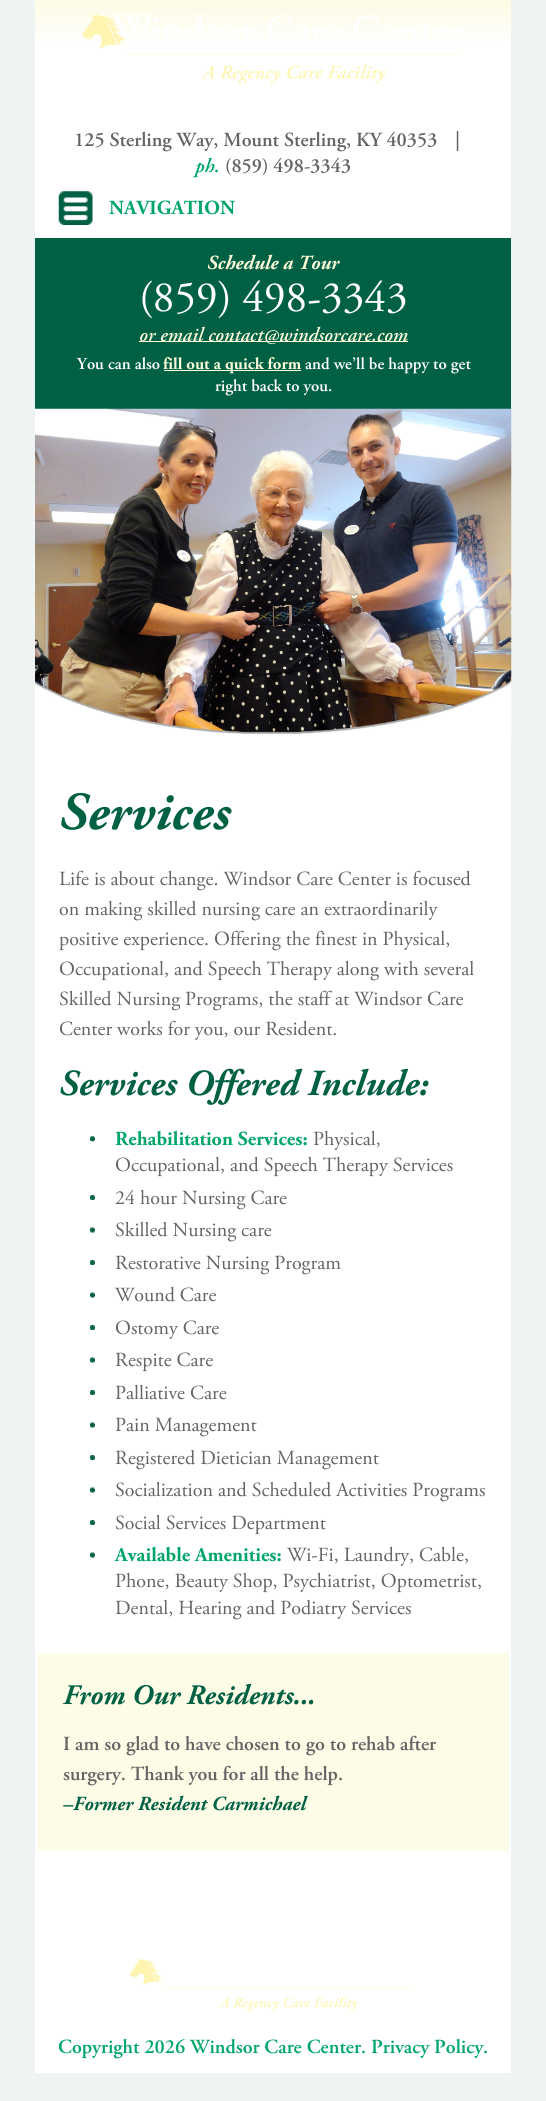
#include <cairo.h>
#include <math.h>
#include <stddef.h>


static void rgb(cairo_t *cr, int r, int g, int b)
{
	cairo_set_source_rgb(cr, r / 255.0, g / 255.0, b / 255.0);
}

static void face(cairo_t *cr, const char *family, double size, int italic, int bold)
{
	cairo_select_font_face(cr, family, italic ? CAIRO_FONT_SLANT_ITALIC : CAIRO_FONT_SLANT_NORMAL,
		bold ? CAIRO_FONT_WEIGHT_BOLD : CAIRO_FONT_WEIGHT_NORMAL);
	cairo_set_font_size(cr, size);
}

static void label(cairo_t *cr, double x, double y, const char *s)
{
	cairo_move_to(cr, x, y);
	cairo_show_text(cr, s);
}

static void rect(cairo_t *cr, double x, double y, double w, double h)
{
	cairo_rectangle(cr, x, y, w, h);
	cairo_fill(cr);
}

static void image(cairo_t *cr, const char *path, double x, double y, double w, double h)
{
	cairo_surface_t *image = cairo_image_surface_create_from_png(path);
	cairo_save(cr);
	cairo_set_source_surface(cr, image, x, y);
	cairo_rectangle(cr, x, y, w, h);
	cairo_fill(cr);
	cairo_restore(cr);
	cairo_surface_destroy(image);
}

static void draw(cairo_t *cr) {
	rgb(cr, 239, 243, 241);
	cairo_paint(cr);
	rgb(cr, 255, 255, 255);
	rect(cr, 35, 0, 476, 238);
	image(cr, "image0.png", 35, 0, 477, 41);
	image(cr, "image1.png", 83, 13, 381, 71);
	face(cr, "Adobe Garamond SemiBold", 20, 0, 0);
	rgb(cr, 100, 100, 100);
	label(cr, 74, 146, "125 Sterling Way, Mount Sterling, KY 40353");
	label(cr, 455, 146, "|");
	face(cr, "Adobe Garamond SemiBold", 20, 1, 0);
	rgb(cr, 0, 166, 105);
	label(cr, 195, 172, "ph.");
	face(cr, "Adobe Garamond SemiBold", 20, 0, 0);
	rgb(cr, 100, 100, 100);
	label(cr, 225, 172, "(859) 498-3343");
	image(cr, "image2.png", 58, 191, 35, 34);
	face(cr, "Adobe Garamond", 20, 0, 1);
	rgb(cr, 0, 166, 105);
	label(cr, 109, 214, "NAVIGATION");
	rgb(cr, 255, 255, 255);
	rect(cr, 35, 740, 476, 1333);
	rgb(cr, 0, 96, 67);
	rect(cr, 35, 238, 476, 171);
	face(cr, "Adobe Garamond", 20, 1, 1);
	rgb(cr, 252, 250, 218);
	label(cr, 207, 269, "Schedule a Tour");
	face(cr, "Adobe Garamond", 43.25, 0, 0);
	rgb(cr, 255, 255, 255);
	label(cr, 139, 311, "(859) 498-3343");
	rgb(cr, 252, 250, 218);
	rect(cr, 139, 341, 269, 1);
	face(cr, "Adobe Garamond SemiBold", 20, 1, 0);
	label(cr, 139, 341, "or email contact@windsorcare.com");
	face(cr, "Adobe Garamond SemiBold", 16.75, 0, 0);
	rgb(cr, 255, 255, 255);
	label(cr, 77, 369, "You can also");
	rgb(cr, 252, 250, 218);
	rect(cr, 164, 370, 137, 1);
	face(cr, "Adobe Garamond", 16.75, 0, 1);
	label(cr, 163, 369, "fill out a quick form");
	face(cr, "Adobe Garamond SemiBold", 16.75, 0, 0);
	rgb(cr, 255, 255, 255);
	label(cr, 305, 369, "and we’ll be happy to get");
	label(cr, 215, 391, "right back to you.");
	image(cr, "image3.png", 35, 408, 477, 332);
	face(cr, "Adobe Garamond", 53.5, 1, 1);
	rgb(cr, 0, 96, 67);
	label(cr, 59, 829, "Services");
	face(cr, "Adobe Garamond", 20, 0, 0);
	rgb(cr, 100, 100, 100);
	label(cr, 59, 885, "Life is about change. Windsor Care Center is focused");
	label(cr, 59, 915, "on making skilled nursing care an extraordinarily");
	label(cr, 59, 945, "positive experience. Offering the finest in Physical,");
	label(cr, 59, 975, "Occupational, and Speech Therapy along with several");
	label(cr, 59, 1005, "Skilled Nursing Programs, the staff at Windsor Care");
	label(cr, 59, 1035, "Center works for you, our Resident.");
	face(cr, "Adobe Garamond", 36.75, 1, 1);
	rgb(cr, 0, 96, 67);
	label(cr, 59, 1095, "Services Offered Include:");
	image(cr, "image4.png", 90, 1136, 5, 6);
	face(cr, "Adobe Garamond", 20, 0, 1);
	rgb(cr, 0, 166, 105);
	label(cr, 115, 1145, "Rehabilitation Services:");
	face(cr, "Adobe Garamond", 20, 0, 0);
	rgb(cr, 100, 100, 100);
	label(cr, 313, 1145, "Physical,");
	label(cr, 115, 1171, "Occupational, and Speech Therapy Services");
	image(cr, "image5.png", 90, 1195, 5, 5);
	label(cr, 115, 1204, "24 hour Nursing Care");
	image(cr, "image6.png", 90, 1227, 5, 6);
	label(cr, 115, 1236, "Skilled Nursing care");
	image(cr, "image5.png", 90, 1260, 5, 5);
	label(cr, 115, 1269, "Restorative Nursing Program");
	image(cr, "image6.png", 90, 1292, 5, 6);
	label(cr, 115, 1301, "Wound Care");
	image(cr, "image5.png", 90, 1325, 5, 5);
	label(cr, 115, 1334, "Ostomy Care");
	image(cr, "image6.png", 90, 1357, 5, 6);
	label(cr, 115, 1366, "Respite Care");
	image(cr, "image5.png", 90, 1390, 5, 5);
	label(cr, 115, 1399, "Palliative Care");
	image(cr, "image6.png", 90, 1422, 5, 6);
	label(cr, 115, 1431, "Pain Management");
	image(cr, "image5.png", 90, 1455, 5, 5);
	label(cr, 115, 1464, "Registered Dietician Management");
	image(cr, "image6.png", 90, 1487, 5, 6);
	label(cr, 115, 1496, "Socialization and Scheduled Activities Programs");
	image(cr, "image5.png", 90, 1520, 5, 5);
	label(cr, 115, 1529, "Social Services Department");
	image(cr, "image6.png", 90, 1552, 5, 6);
	face(cr, "Adobe Garamond", 20, 0, 1);
	rgb(cr, 0, 166, 105);
	label(cr, 115, 1561, "Available Amenities:");
	face(cr, "Adobe Garamond", 20, 0, 0);
	rgb(cr, 100, 100, 100);
	label(cr, 287, 1561, "Wi-Fi, Laundry, Cable,");
	label(cr, 115, 1587, "Phone, Beauty Shop, Psychiatrist, Optometrist,");
	label(cr, 115, 1614, "Dental, Hearing and Podiatry Services");
	rgb(cr, 253, 252, 231);
	rect(cr, 38, 1653, 471, 198);
	face(cr, "Adobe Garamond", 28.25, 1, 1);
	rgb(cr, 0, 96, 67);
	label(cr, 63, 1704, "From Our Residents...");
	face(cr, "Adobe Garamond SemiBold", 20, 0, 0);
	rgb(cr, 100, 100, 100);
	label(cr, 63, 1750, "I am so glad to have chosen to go to rehab after");
	label(cr, 63, 1780, "surgery. Thank you for all the help.");
	face(cr, "Adobe Garamond", 20, 1, 1);
	rgb(cr, 0, 96, 67);
	label(cr, 63, 1810, "–Former Resident Carmichael");
	image(cr, "image7.png", 130, 1958, 285, 53);
	face(cr, "Adobe Garamond SemiBold", 20, 0, 0);
	rgb(cr, 0, 166, 105);
	label(cr, 58, 2053, "Copyright 2026 Windsor Care Center. Privacy Policy.");
}

int main(void) {
	cairo_surface_t *surface = cairo_image_surface_create(CAIRO_FORMAT_RGB24, 546, 2101);
	cairo_t *cr = cairo_create(surface);
	cairo_font_options_t *options = cairo_font_options_create();
	cairo_font_options_set_hint_metrics(options, CAIRO_HINT_METRICS_OFF);
	cairo_font_options_set_hint_style(options, CAIRO_HINT_STYLE_NONE);
	cairo_set_font_options(cr, options);
	cairo_set_miter_limit(cr, 4);
	draw(cr);
	cairo_surface_write_to_png(surface, "render.png");
	cairo_font_options_destroy(options);
	cairo_destroy(cr);
	cairo_surface_destroy(surface);
	return 0;
}
